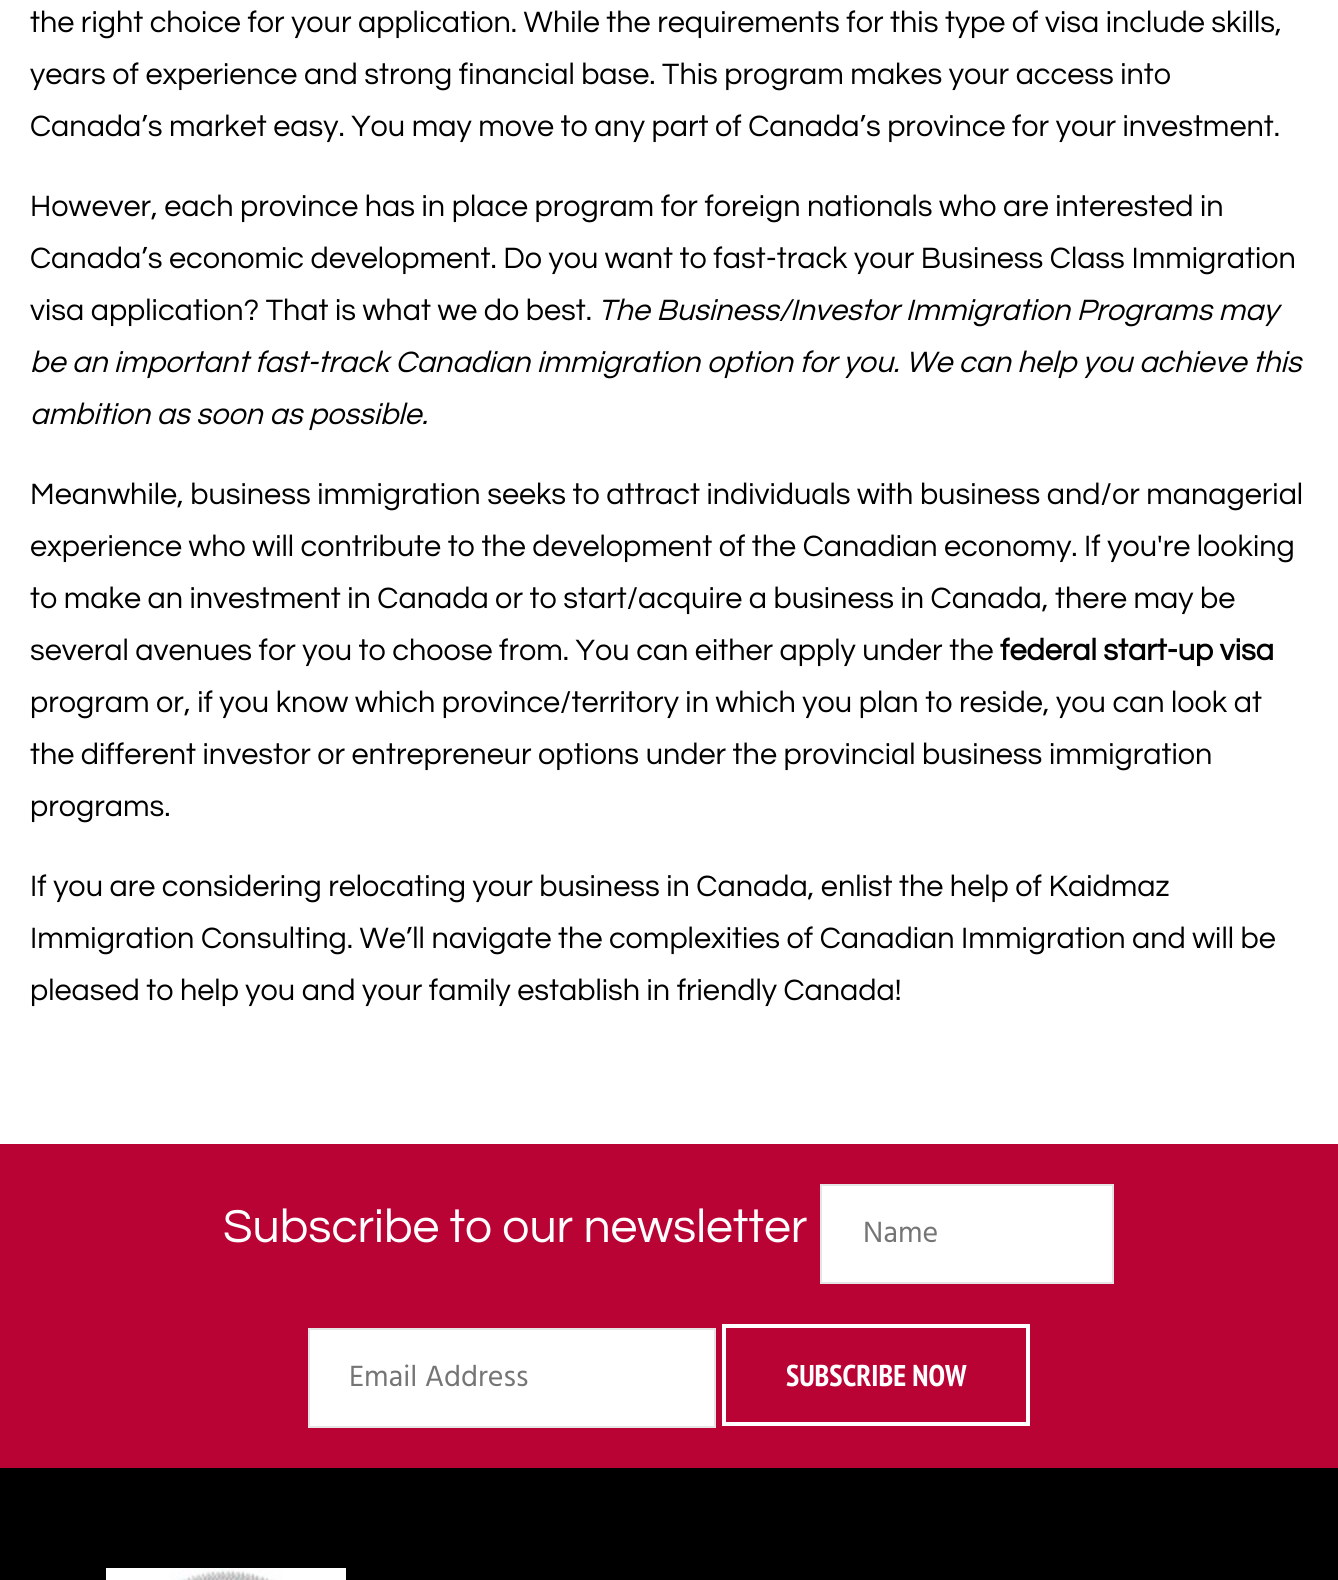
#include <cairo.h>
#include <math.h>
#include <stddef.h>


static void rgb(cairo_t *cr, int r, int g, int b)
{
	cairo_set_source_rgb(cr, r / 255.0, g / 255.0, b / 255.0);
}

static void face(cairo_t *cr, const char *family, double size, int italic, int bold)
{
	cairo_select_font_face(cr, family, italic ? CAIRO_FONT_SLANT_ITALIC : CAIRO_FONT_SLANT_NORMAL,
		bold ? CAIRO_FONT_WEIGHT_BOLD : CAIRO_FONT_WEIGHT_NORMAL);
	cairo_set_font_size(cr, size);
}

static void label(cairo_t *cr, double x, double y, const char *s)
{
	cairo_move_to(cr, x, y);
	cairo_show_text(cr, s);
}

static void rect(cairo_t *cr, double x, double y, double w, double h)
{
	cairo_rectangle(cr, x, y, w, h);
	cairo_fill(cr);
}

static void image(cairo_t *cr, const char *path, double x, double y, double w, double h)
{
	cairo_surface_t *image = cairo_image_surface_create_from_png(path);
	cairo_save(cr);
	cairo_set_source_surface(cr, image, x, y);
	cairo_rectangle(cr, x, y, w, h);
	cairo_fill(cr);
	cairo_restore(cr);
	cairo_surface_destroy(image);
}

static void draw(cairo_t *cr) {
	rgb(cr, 255, 255, 255);
	cairo_paint(cr);
	face(cr, "Questrial", 30.6, 0, 0);
	rgb(cr, 0, 0, 0);
	label(cr, 30, 32, "the right choice for your application. While the requirements for this type of visa include skills,");
	label(cr, 30, 84, "years of experience and strong financial base. This program makes your access into");
	label(cr, 30, 136, "Canada’s market easy. You may move to any part of Canada’s province for your investment.");
	label(cr, 30, 216, "However, each province has in place program for foreign nationals who are interested in");
	label(cr, 30, 268, "Canada’s economic development. Do you want to fast-track your Business Class Immigration");
	label(cr, 30, 320, "visa application? That is what we do best.");
	face(cr, "Questrial", 30.6, 1, 0);
	label(cr, 598, 320, "The Business/Investor Immigration Programs may");
	label(cr, 30, 372, "be an important fast-track Canadian immigration option for you. We can help you achieve this");
	label(cr, 30, 424, "ambition as soon as possible.");
	face(cr, "Questrial", 30.6, 0, 0);
	label(cr, 30, 504, "Meanwhile, business immigration seeks to attract individuals with business and/or managerial");
	label(cr, 30, 556, "experience who will contribute to the development of the Canadian economy. If you're looking");
	label(cr, 30, 608, "to make an investment in Canada or to start/acquire a business in Canada, there may be");
	label(cr, 30, 660, "several avenues for you to choose from. You can either apply under the");
	face(cr, "Questrial", 30.6, 0, 1);
	label(cr, 1000, 660, "federal start-up visa");
	face(cr, "Questrial", 30.6, 0, 0);
	label(cr, 30, 712, "program or, if you know which province/territory in which you plan to reside, you can look at");
	label(cr, 30, 764, "the different investor or entrepreneur options under the provincial business immigration");
	label(cr, 30, 816, "programs.");
	label(cr, 30, 896, "If you are considering relocating your business in Canada, enlist the help of Kaidmaz");
	label(cr, 30, 948, "Immigration Consulting. We’ll navigate the complexities of Canadian Immigration and will be");
	label(cr, 30, 1000, "pleased to help you and your family establish in friendly Canada!");
	rgb(cr, 186, 3, 53);
	rect(cr, 0, 1144, 1338, 324);
	face(cr, "Questrial", 48, 0, 0);
	rgb(cr, 255, 255, 255);
	label(cr, 223, 1242, "Subscribe to our newsletter");
	cairo_rectangle(cr, 821, 1185, 292, 98);
	cairo_fill_preserve(cr);
	rgb(cr, 229, 229, 229);
	cairo_stroke(cr);
	face(cr, "Hind", 30, 0, 0);
	rgb(cr, 117, 117, 117);
	label(cr, 863, 1242, "Name");
	rgb(cr, 255, 255, 255);
	cairo_rectangle(cr, 309, 1329, 406, 98);
	cairo_fill_preserve(cr);
	rgb(cr, 229, 229, 229);
	cairo_stroke(cr);
	rgb(cr, 117, 117, 117);
	label(cr, 349, 1386, "Email Address");
	cairo_rectangle(cr, 724, 1326, 304, 98);
	rgb(cr, 255, 255, 255);
	cairo_set_line_width(cr, 4);
	cairo_stroke(cr);
	face(cr, "PT Sans Narrow", 30, 0, 1);
	label(cr, 786, 1386, "SUBSCRIBE NOW");
	rgb(cr, 0, 0, 0);
	rect(cr, 0, 1468, 1338, 112);
	image(cr, "image0.png", 106, 1568, 240, 12);
}

int main(void) {
	cairo_surface_t *surface = cairo_image_surface_create(CAIRO_FORMAT_RGB24, 1338, 1580);
	cairo_t *cr = cairo_create(surface);
	cairo_font_options_t *options = cairo_font_options_create();
	cairo_font_options_set_hint_metrics(options, CAIRO_HINT_METRICS_OFF);
	cairo_font_options_set_hint_style(options, CAIRO_HINT_STYLE_NONE);
	cairo_set_font_options(cr, options);
	cairo_set_miter_limit(cr, 4);
	draw(cr);
	cairo_surface_write_to_png(surface, "render.png");
	cairo_font_options_destroy(options);
	cairo_destroy(cr);
	cairo_surface_destroy(surface);
	return 0;
}
